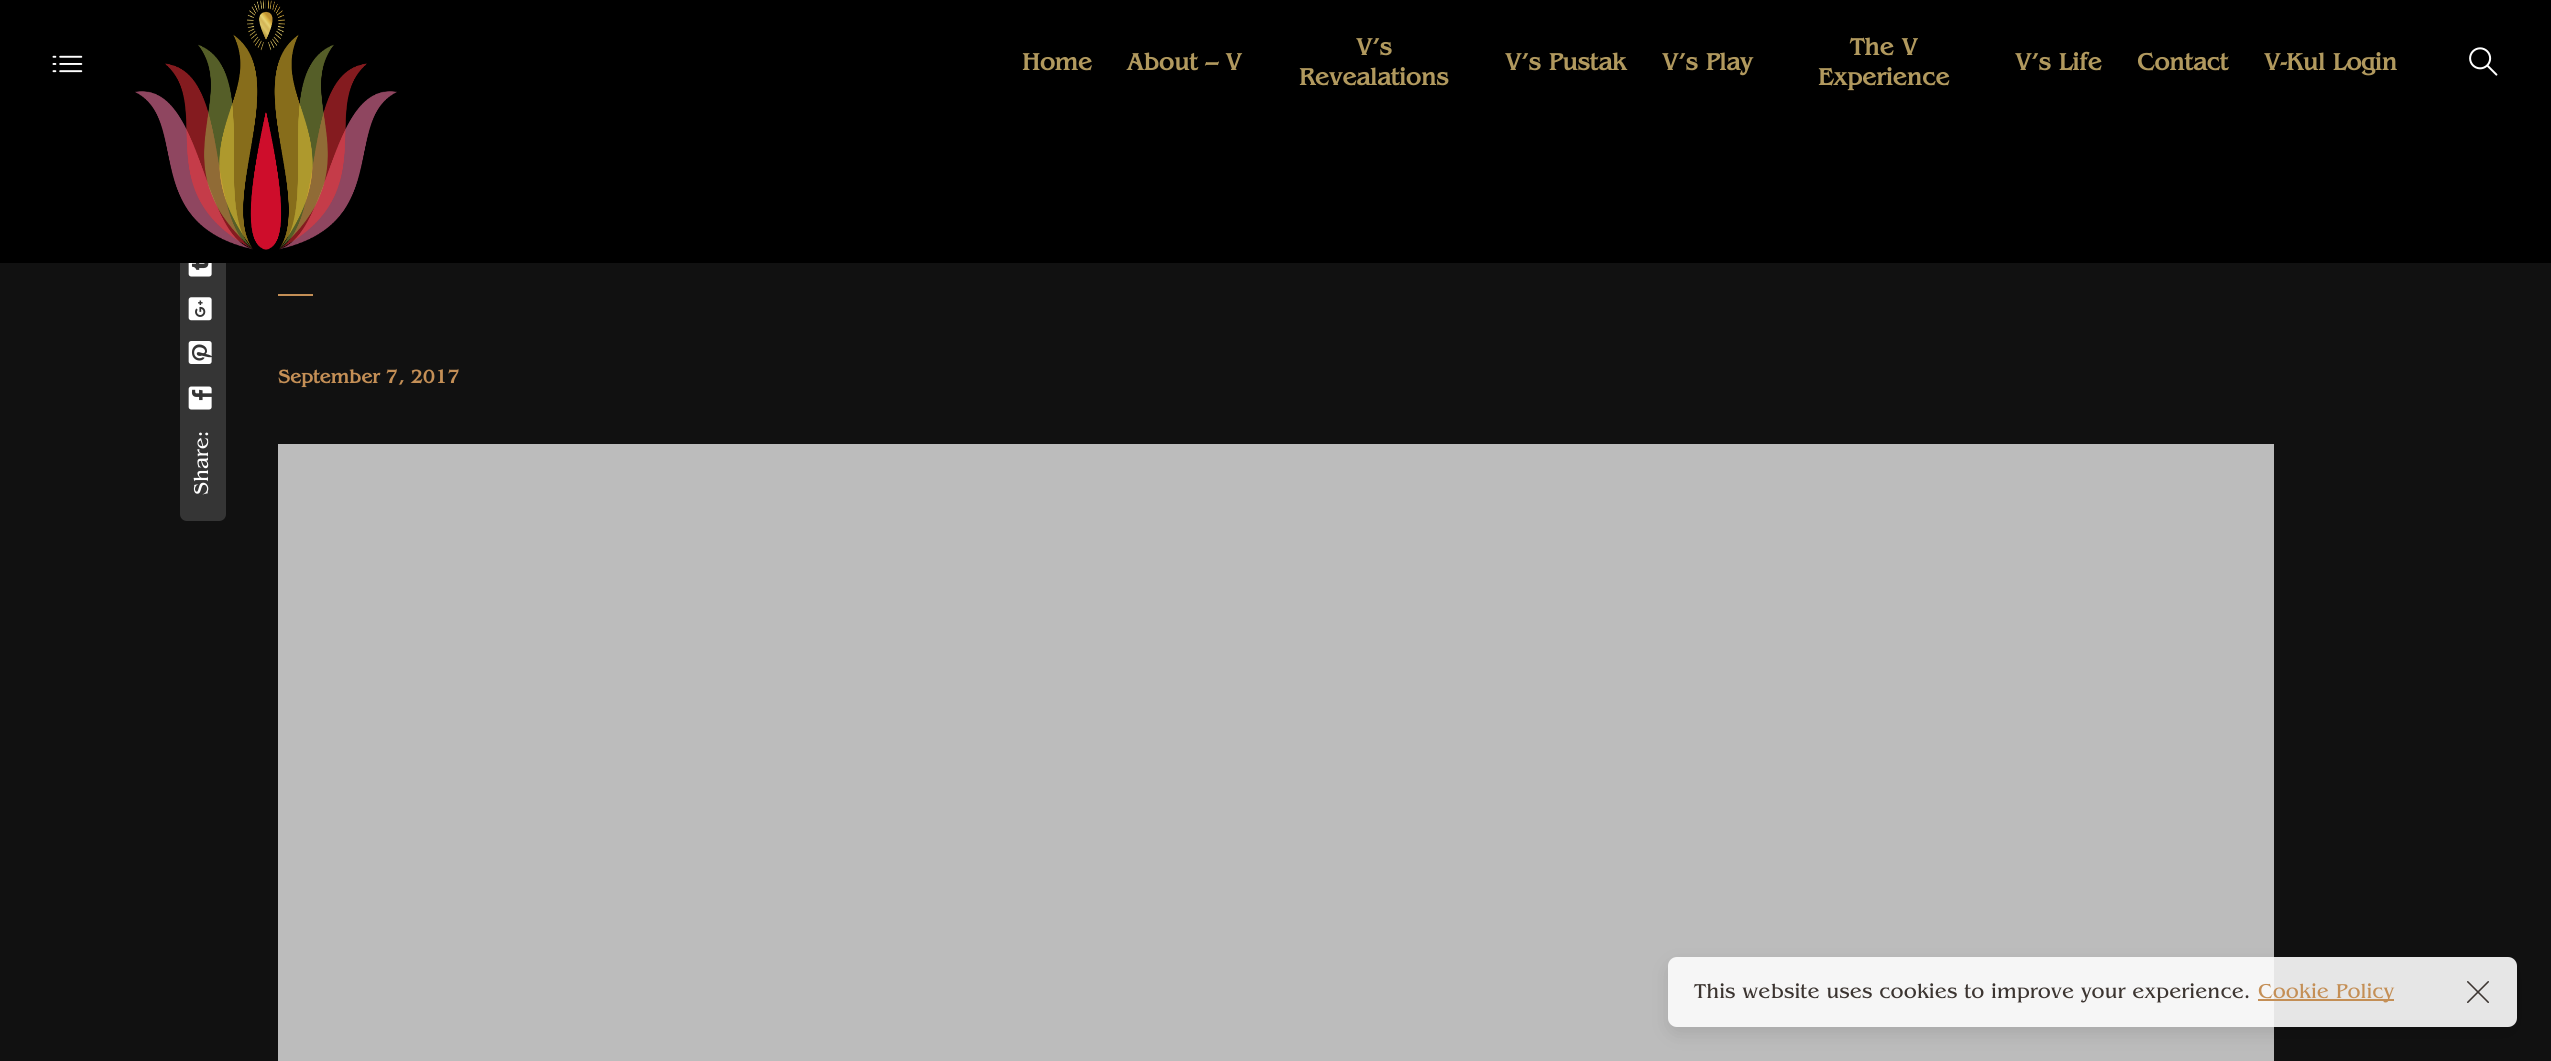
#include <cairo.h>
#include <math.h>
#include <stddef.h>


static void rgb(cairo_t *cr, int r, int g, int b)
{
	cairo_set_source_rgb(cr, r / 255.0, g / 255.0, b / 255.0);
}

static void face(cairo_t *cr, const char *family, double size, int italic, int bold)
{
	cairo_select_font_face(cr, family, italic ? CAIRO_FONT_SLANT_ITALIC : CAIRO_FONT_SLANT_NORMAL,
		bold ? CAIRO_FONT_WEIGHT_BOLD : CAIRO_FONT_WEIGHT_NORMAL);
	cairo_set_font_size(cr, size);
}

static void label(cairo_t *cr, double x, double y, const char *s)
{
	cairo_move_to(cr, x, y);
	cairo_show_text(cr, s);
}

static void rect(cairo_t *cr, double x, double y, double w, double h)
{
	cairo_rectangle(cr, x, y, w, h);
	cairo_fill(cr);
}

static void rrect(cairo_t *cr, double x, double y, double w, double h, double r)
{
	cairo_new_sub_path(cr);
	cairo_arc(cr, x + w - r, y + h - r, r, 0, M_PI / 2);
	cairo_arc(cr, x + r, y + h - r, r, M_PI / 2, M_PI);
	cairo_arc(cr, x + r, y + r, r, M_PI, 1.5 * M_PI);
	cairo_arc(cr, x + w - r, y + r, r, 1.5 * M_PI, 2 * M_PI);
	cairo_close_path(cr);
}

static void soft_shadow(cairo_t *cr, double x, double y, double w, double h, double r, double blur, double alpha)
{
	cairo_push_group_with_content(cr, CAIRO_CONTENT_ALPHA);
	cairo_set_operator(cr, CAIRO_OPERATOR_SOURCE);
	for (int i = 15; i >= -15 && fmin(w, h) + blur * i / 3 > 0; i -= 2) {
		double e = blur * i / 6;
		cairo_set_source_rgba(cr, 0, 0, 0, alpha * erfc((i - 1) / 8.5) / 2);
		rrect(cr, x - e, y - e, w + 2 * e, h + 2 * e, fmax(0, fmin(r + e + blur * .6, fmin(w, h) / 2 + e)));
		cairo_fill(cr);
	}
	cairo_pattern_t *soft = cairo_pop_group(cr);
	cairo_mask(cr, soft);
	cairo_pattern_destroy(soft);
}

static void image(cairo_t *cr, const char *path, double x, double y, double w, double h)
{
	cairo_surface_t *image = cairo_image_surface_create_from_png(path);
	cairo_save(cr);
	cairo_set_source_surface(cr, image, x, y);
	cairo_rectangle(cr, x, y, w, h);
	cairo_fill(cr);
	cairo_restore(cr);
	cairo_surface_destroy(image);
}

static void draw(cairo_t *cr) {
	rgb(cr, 17, 17, 17);
	cairo_paint(cr);
	rgb(cr, 53, 53, 53);
	cairo_new_path(cr);
	cairo_move_to(cr, 180, 514);
	cairo_line_to(cr, 180, 191);
	cairo_curve_to(cr, 180, 187, 183, 184, 187, 184);
	cairo_line_to(cr, 219, 184);
	cairo_curve_to(cr, 223, 184, 226, 187, 226, 191);
	cairo_line_to(cr, 226, 514);
	cairo_curve_to(cr, 226, 518, 223, 521, 219, 521);
	cairo_line_to(cr, 187, 521);
	cairo_curve_to(cr, 183, 521, 180, 518, 180, 514);
	cairo_close_path(cr);
	cairo_fill(cr);
	rgb(cr, 0, 0, 0);
	rect(cr, 0, 0, 2551, 263);
	image(cr, "image0.png", 52, 55, 31, 18);
	image(cr, "image1.png", 135, 0, 262, 250);
	face(cr, "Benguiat", 24.5, 0, 1);
	rgb(cr, 177, 153, 94);
	label(cr, 1022, 70, "Home");
	label(cr, 1127, 70, "About – V");
	label(cr, 1356, 55, "V’s");
	label(cr, 1299, 85, "Revealations");
	label(cr, 1505, 70, "V’s Pustak");
	label(cr, 1662, 70, "V’s Play");
	label(cr, 1850, 55, "The V");
	label(cr, 1818, 85, "Experience");
	label(cr, 2015, 70, "V’s Life");
	label(cr, 2137, 70, "Contact");
	label(cr, 2264, 70, "V-Kul Login");
	image(cr, "image2.png", 2469, 47, 29, 29);
	rgb(cr, 196, 143, 86);
	rect(cr, 278, 294, 35, 2);
	face(cr, "Benguiat", 19.25, 0, 1);
	label(cr, 278, 383, "September 7, 2017");
	image(cr, "image3.png", 188, 263, 24, 14);
	image(cr, "image4.png", 188, 297, 24, 24);
	image(cr, "image5.png", 188, 341, 24, 23);
	image(cr, "image6.png", 188, 386, 24, 24);
	face(cr, "Benguiat", 21, 0, 0);
	rgb(cr, 255, 255, 255);
	cairo_save(cr);
	cairo_translate(cr, 208, 495);
	cairo_rotate(cr, -90 * M_PI / 180);
	label(cr, 0, 0, "Share:");
	cairo_restore(cr);
	rgb(cr, 188, 188, 188);
	rect(cr, 278, 444, 1996, 617);
	cairo_save(cr);
	cairo_set_fill_rule(cr, CAIRO_FILL_RULE_EVEN_ODD);
	cairo_new_path(cr);
	cairo_move_to(cr, 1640, 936);
	cairo_line_to(cr, 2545, 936);
	cairo_line_to(cr, 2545, 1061);
	cairo_line_to(cr, 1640, 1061);
	cairo_close_path(cr);
	cairo_move_to(cr, 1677, 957);
	cairo_line_to(cr, 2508, 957);
	cairo_curve_to(cr, 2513, 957, 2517, 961, 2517, 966);
	cairo_line_to(cr, 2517, 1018);
	cairo_curve_to(cr, 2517, 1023, 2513, 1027, 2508, 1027);
	cairo_line_to(cr, 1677, 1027);
	cairo_curve_to(cr, 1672, 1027, 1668, 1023, 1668, 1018);
	cairo_line_to(cr, 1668, 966);
	cairo_curve_to(cr, 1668, 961, 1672, 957, 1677, 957);
	cairo_close_path(cr);
	cairo_clip(cr);
	rgb(cr, 0, 0, 0);
	soft_shadow(cr, 1668, 964, 849, 70, 9, 9, 0.1);
	cairo_restore(cr);
	cairo_set_source_rgba(cr, 0.992, 0.992, 0.992, 0.9);
	rrect(cr, 1668, 957, 849, 70, 9);
	cairo_fill(cr);
	rgb(cr, 60, 53, 49);
	label(cr, 1694, 998, "This website uses cookies to improve your experience.");
	rgb(cr, 196, 143, 86);
	rect(cr, 2258, 999, 136, 2);
	label(cr, 2258, 998, "Cookie Policy");
	image(cr, "image7.png", 2467, 981, 22, 22);
}

int main(void) {
	cairo_surface_t *surface = cairo_image_surface_create(CAIRO_FORMAT_RGB24, 2551, 1061);
	cairo_t *cr = cairo_create(surface);
	cairo_font_options_t *options = cairo_font_options_create();
	cairo_font_options_set_hint_metrics(options, CAIRO_HINT_METRICS_OFF);
	cairo_font_options_set_hint_style(options, CAIRO_HINT_STYLE_NONE);
	cairo_set_font_options(cr, options);
	cairo_set_miter_limit(cr, 4);
	draw(cr);
	cairo_surface_write_to_png(surface, "render.png");
	cairo_font_options_destroy(options);
	cairo_destroy(cr);
	cairo_surface_destroy(surface);
	return 0;
}
